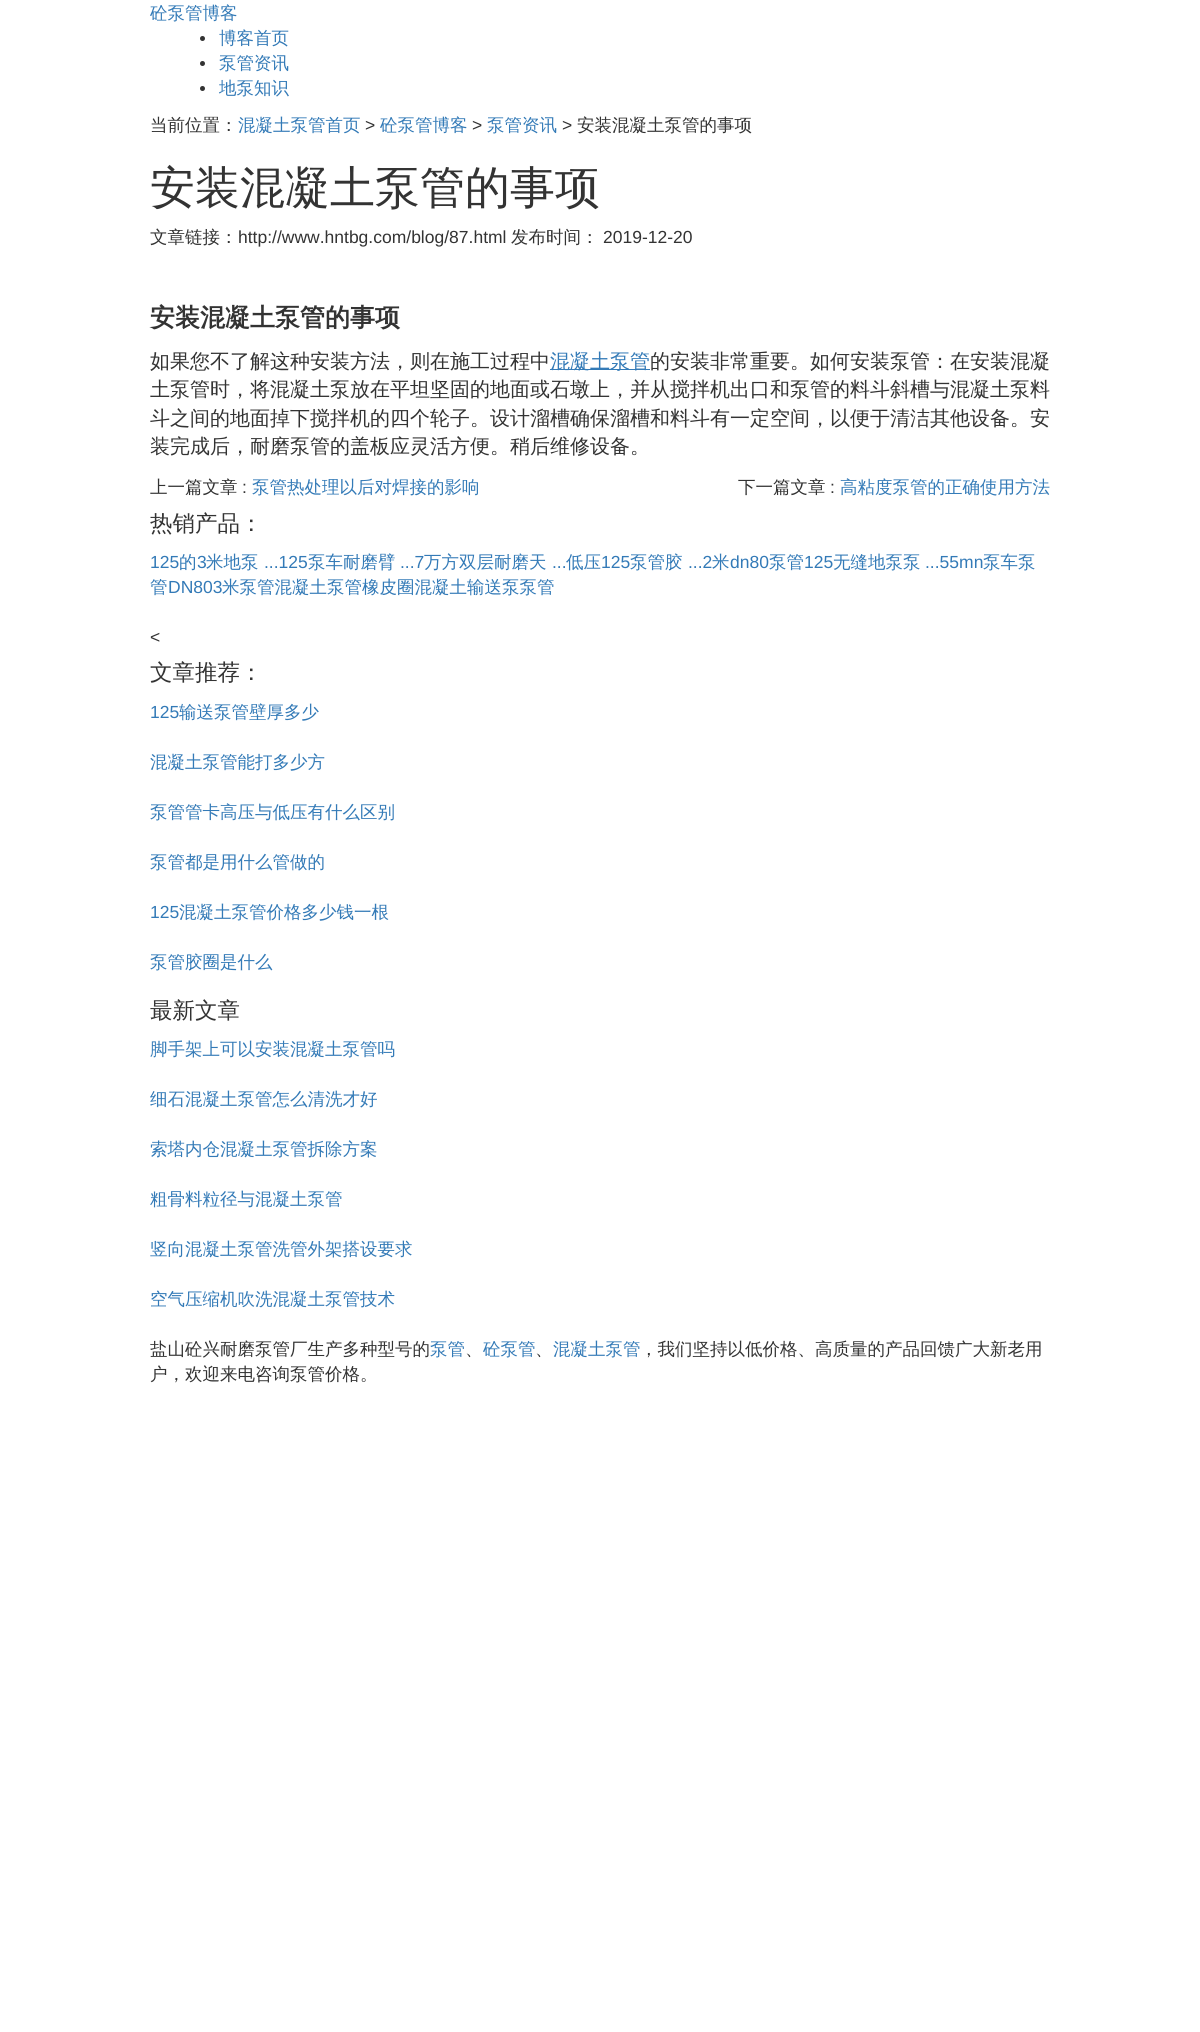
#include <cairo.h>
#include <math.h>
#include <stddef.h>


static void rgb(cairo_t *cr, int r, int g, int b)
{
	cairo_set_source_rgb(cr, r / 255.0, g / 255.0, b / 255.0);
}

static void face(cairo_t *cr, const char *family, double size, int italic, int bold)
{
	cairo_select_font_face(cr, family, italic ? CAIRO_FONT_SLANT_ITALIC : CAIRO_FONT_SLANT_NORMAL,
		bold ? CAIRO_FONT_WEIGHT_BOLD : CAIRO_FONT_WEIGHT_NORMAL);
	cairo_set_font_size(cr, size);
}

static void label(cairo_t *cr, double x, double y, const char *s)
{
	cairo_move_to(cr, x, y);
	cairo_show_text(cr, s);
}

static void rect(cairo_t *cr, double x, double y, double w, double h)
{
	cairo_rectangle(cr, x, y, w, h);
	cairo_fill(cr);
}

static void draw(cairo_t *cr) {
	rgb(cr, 255, 255, 255);
	cairo_paint(cr);
	face(cr, "WenQuanYi Zen Hei Medium", 17.5, 0, 0);
	rgb(cr, 51, 122, 183);
	label(cr, 150, 19, "砼泵管博客");
	rgb(cr, 51, 51, 51);
	cairo_new_path(cr);
	cairo_arc(cr, 202.5, 38.5, 2.5, 0, 2 * M_PI);
	cairo_fill(cr);
	rgb(cr, 51, 122, 183);
	label(cr, 219, 44, "博客首页");
	rgb(cr, 51, 51, 51);
	cairo_new_path(cr);
	cairo_arc(cr, 202.5, 63.5, 2.5, 0, 2 * M_PI);
	cairo_fill(cr);
	rgb(cr, 51, 122, 183);
	label(cr, 219, 69, "泵管资讯");
	rgb(cr, 51, 51, 51);
	cairo_new_path(cr);
	cairo_arc(cr, 202.5, 88.5, 2.5, 0, 2 * M_PI);
	cairo_fill(cr);
	rgb(cr, 51, 122, 183);
	label(cr, 219, 94, "地泵知识");
	rgb(cr, 51, 51, 51);
	label(cr, 150, 131, "当前位置：");
	rgb(cr, 51, 122, 183);
	label(cr, 238, 131, "混凝土泵管首页");
	face(cr, "Liberation Sans", 17.5, 0, 0);
	rgb(cr, 51, 51, 51);
	label(cr, 365, 131, ">");
	face(cr, "WenQuanYi Zen Hei Medium", 17.5, 0, 0);
	rgb(cr, 51, 122, 183);
	label(cr, 380, 131, "砼泵管博客");
	face(cr, "Liberation Sans", 17.5, 0, 0);
	rgb(cr, 51, 51, 51);
	label(cr, 472, 131, ">");
	face(cr, "WenQuanYi Zen Hei Medium", 17.5, 0, 0);
	rgb(cr, 51, 122, 183);
	label(cr, 487, 131, "泵管资讯");
	face(cr, "Liberation Sans", 17.5, 0, 0);
	rgb(cr, 51, 51, 51);
	label(cr, 562, 131, ">");
	face(cr, "WenQuanYi Zen Hei Medium", 17.5, 0, 0);
	label(cr, 577, 131, "安装混凝土泵管的事项");
	face(cr, "WenQuanYi Zen Hei Medium", 45, 0, 0);
	label(cr, 150, 203, "安装混凝土泵管的事项");
	face(cr, "WenQuanYi Zen Hei Medium", 17.5, 0, 0);
	label(cr, 150, 243, "文章链接：");
	face(cr, "Liberation Sans", 17.5, 0, 0);
	label(cr, 238, 243, "http://www.hntbg.com/blog/87.html");
	face(cr, "WenQuanYi Zen Hei Medium", 17.5, 0, 0);
	label(cr, 511, 243, "发布时间：");
	face(cr, "Liberation Sans", 17.5, 0, 0);
	label(cr, 603, 243, "2019-12-20");
	face(cr, "WenQuanYi Zen Hei", 25, 0, 1);
	label(cr, 150, 326, "安装混凝土泵管的事项");
	face(cr, "WenQuanYi Zen Hei Medium", 20, 0, 0);
	label(cr, 150, 368, "如果您不了解这种安装方法，则在施工过程中");
	rgb(cr, 51, 122, 183);
	rect(cr, 550, 369, 100, 1);
	label(cr, 550, 368, "混凝土泵管");
	rgb(cr, 51, 51, 51);
	label(cr, 650, 368, "的安装非常重要。如何安装泵管：在安装混凝");
	label(cr, 150, 396, "土泵管时，将混凝土泵放在平坦坚固的地面或石墩上，并从搅拌机出口和泵管的料斗斜槽与混凝土泵料");
	label(cr, 150, 425, "斗之间的地面掉下搅拌机的四个轮子。设计溜槽确保溜槽和料斗有一定空间，以便于清洁其他设备。安");
	label(cr, 150, 453, "装完成后，耐磨泵管的盖板应灵活方便。稍后维修设备。");
	face(cr, "WenQuanYi Zen Hei Medium", 17.5, 0, 0);
	label(cr, 150, 493, "上一篇文章");
	face(cr, "Liberation Sans", 17.5, 0, 0);
	label(cr, 242, 493, ":");
	face(cr, "WenQuanYi Zen Hei Medium", 17.5, 0, 0);
	rgb(cr, 51, 122, 183);
	label(cr, 252, 493, "泵管热处理以后对焊接的影响");
	rgb(cr, 51, 51, 51);
	label(cr, 738, 493, "下一篇文章");
	face(cr, "Liberation Sans", 17.5, 0, 0);
	label(cr, 830, 493, ":");
	face(cr, "WenQuanYi Zen Hei Medium", 17.5, 0, 0);
	rgb(cr, 51, 122, 183);
	label(cr, 840, 493, "高粘度泵管的正确使用方法");
	face(cr, "WenQuanYi Zen Hei Medium", 22.5, 0, 0);
	rgb(cr, 51, 51, 51);
	label(cr, 150, 531, "热销产品：");
	face(cr, "Liberation Sans", 17.5, 0, 0);
	rgb(cr, 51, 122, 183);
	label(cr, 150, 568, "125");
	face(cr, "WenQuanYi Zen Hei Medium", 17.5, 0, 0);
	label(cr, 179, 568, "的");
	face(cr, "Liberation Sans", 17.5, 0, 0);
	label(cr, 197, 568, "3");
	face(cr, "WenQuanYi Zen Hei Medium", 17.5, 0, 0);
	label(cr, 206, 568, "米地泵");
	face(cr, "Liberation Sans", 17.5, 0, 0);
	label(cr, 264, 568, "...125");
	face(cr, "WenQuanYi Zen Hei Medium", 17.5, 0, 0);
	label(cr, 308, 568, "泵车耐磨臂");
	face(cr, "Liberation Sans", 17.5, 0, 0);
	label(cr, 400, 568, "...7");
	face(cr, "WenQuanYi Zen Hei Medium", 17.5, 0, 0);
	label(cr, 424, 568, "万方双层耐磨天");
	face(cr, "Liberation Sans", 17.5, 0, 0);
	label(cr, 552, 568, "...");
	face(cr, "WenQuanYi Zen Hei Medium", 17.5, 0, 0);
	label(cr, 566, 568, "低压");
	face(cr, "Liberation Sans", 17.5, 0, 0);
	label(cr, 601, 568, "125");
	face(cr, "WenQuanYi Zen Hei Medium", 17.5, 0, 0);
	label(cr, 630, 568, "泵管胶");
	face(cr, "Liberation Sans", 17.5, 0, 0);
	label(cr, 688, 568, "...2");
	face(cr, "WenQuanYi Zen Hei Medium", 17.5, 0, 0);
	label(cr, 712, 568, "米");
	face(cr, "Liberation Sans", 17.5, 0, 0);
	label(cr, 730, 568, "dn80");
	face(cr, "WenQuanYi Zen Hei Medium", 17.5, 0, 0);
	label(cr, 769, 568, "泵管");
	face(cr, "Liberation Sans", 17.5, 0, 0);
	label(cr, 804, 568, "125");
	face(cr, "WenQuanYi Zen Hei Medium", 17.5, 0, 0);
	label(cr, 833, 568, "无缝地泵泵");
	face(cr, "Liberation Sans", 17.5, 0, 0);
	label(cr, 925, 568, "...55mn");
	face(cr, "WenQuanYi Zen Hei Medium", 17.5, 0, 0);
	label(cr, 983, 568, "泵车泵");
	label(cr, 150, 593, "管");
	face(cr, "Liberation Sans", 17.5, 0, 0);
	label(cr, 168, 593, "DN803");
	face(cr, "WenQuanYi Zen Hei Medium", 17.5, 0, 0);
	label(cr, 222, 593, "米泵管混凝土泵管橡皮圈混凝土输送泵泵管");
	face(cr, "Liberation Sans", 17.5, 0, 0);
	rgb(cr, 51, 51, 51);
	label(cr, 150, 643, "<");
	face(cr, "WenQuanYi Zen Hei Medium", 22.5, 0, 0);
	label(cr, 150, 680, "文章推荐：");
	face(cr, "Liberation Sans", 17.5, 0, 0);
	rgb(cr, 51, 122, 183);
	label(cr, 150, 718, "125");
	face(cr, "WenQuanYi Zen Hei Medium", 17.5, 0, 0);
	label(cr, 179, 718, "输送泵管壁厚多少");
	label(cr, 150, 768, "混凝土泵管能打多少方");
	label(cr, 150, 818, "泵管管卡高压与低压有什么区别");
	label(cr, 150, 868, "泵管都是用什么管做的");
	face(cr, "Liberation Sans", 17.5, 0, 0);
	label(cr, 150, 918, "125");
	face(cr, "WenQuanYi Zen Hei Medium", 17.5, 0, 0);
	label(cr, 179, 918, "混凝土泵管价格多少钱一根");
	label(cr, 150, 968, "泵管胶圈是什么");
	face(cr, "WenQuanYi Zen Hei Medium", 22.5, 0, 0);
	rgb(cr, 51, 51, 51);
	label(cr, 150, 1018, "最新文章");
	face(cr, "WenQuanYi Zen Hei Medium", 17.5, 0, 0);
	rgb(cr, 51, 122, 183);
	label(cr, 150, 1055, "脚手架上可以安装混凝土泵管吗");
	label(cr, 150, 1105, "细石混凝土泵管怎么清洗才好");
	label(cr, 150, 1155, "索塔内仓混凝土泵管拆除方案");
	label(cr, 150, 1205, "粗骨料粒径与混凝土泵管");
	label(cr, 150, 1255, "竖向混凝土泵管洗管外架搭设要求");
	label(cr, 150, 1305, "空气压缩机吹洗混凝土泵管技术");
	rgb(cr, 51, 51, 51);
	label(cr, 150, 1355, "盐山砼兴耐磨泵管厂生产多种型号的");
	rgb(cr, 51, 122, 183);
	label(cr, 430, 1355, "泵管");
	rgb(cr, 51, 51, 51);
	label(cr, 465, 1355, "、");
	rgb(cr, 51, 122, 183);
	label(cr, 483, 1355, "砼泵管");
	rgb(cr, 51, 51, 51);
	label(cr, 535, 1355, "、");
	rgb(cr, 51, 122, 183);
	label(cr, 553, 1355, "混凝土泵管");
	rgb(cr, 51, 51, 51);
	label(cr, 640, 1355, "，我们坚持以低价格、高质量的产品回馈广大新老用");
	label(cr, 150, 1380, "户，欢迎来电咨询泵管价格。");
}

int main(void) {
	cairo_surface_t *surface = cairo_image_surface_create(CAIRO_FORMAT_RGB24, 1200, 2032);
	cairo_t *cr = cairo_create(surface);
	cairo_font_options_t *options = cairo_font_options_create();
	cairo_font_options_set_hint_metrics(options, CAIRO_HINT_METRICS_OFF);
	cairo_font_options_set_hint_style(options, CAIRO_HINT_STYLE_NONE);
	cairo_set_font_options(cr, options);
	cairo_set_miter_limit(cr, 4);
	draw(cr);
	cairo_surface_write_to_png(surface, "render.png");
	cairo_font_options_destroy(options);
	cairo_destroy(cr);
	cairo_surface_destroy(surface);
	return 0;
}
